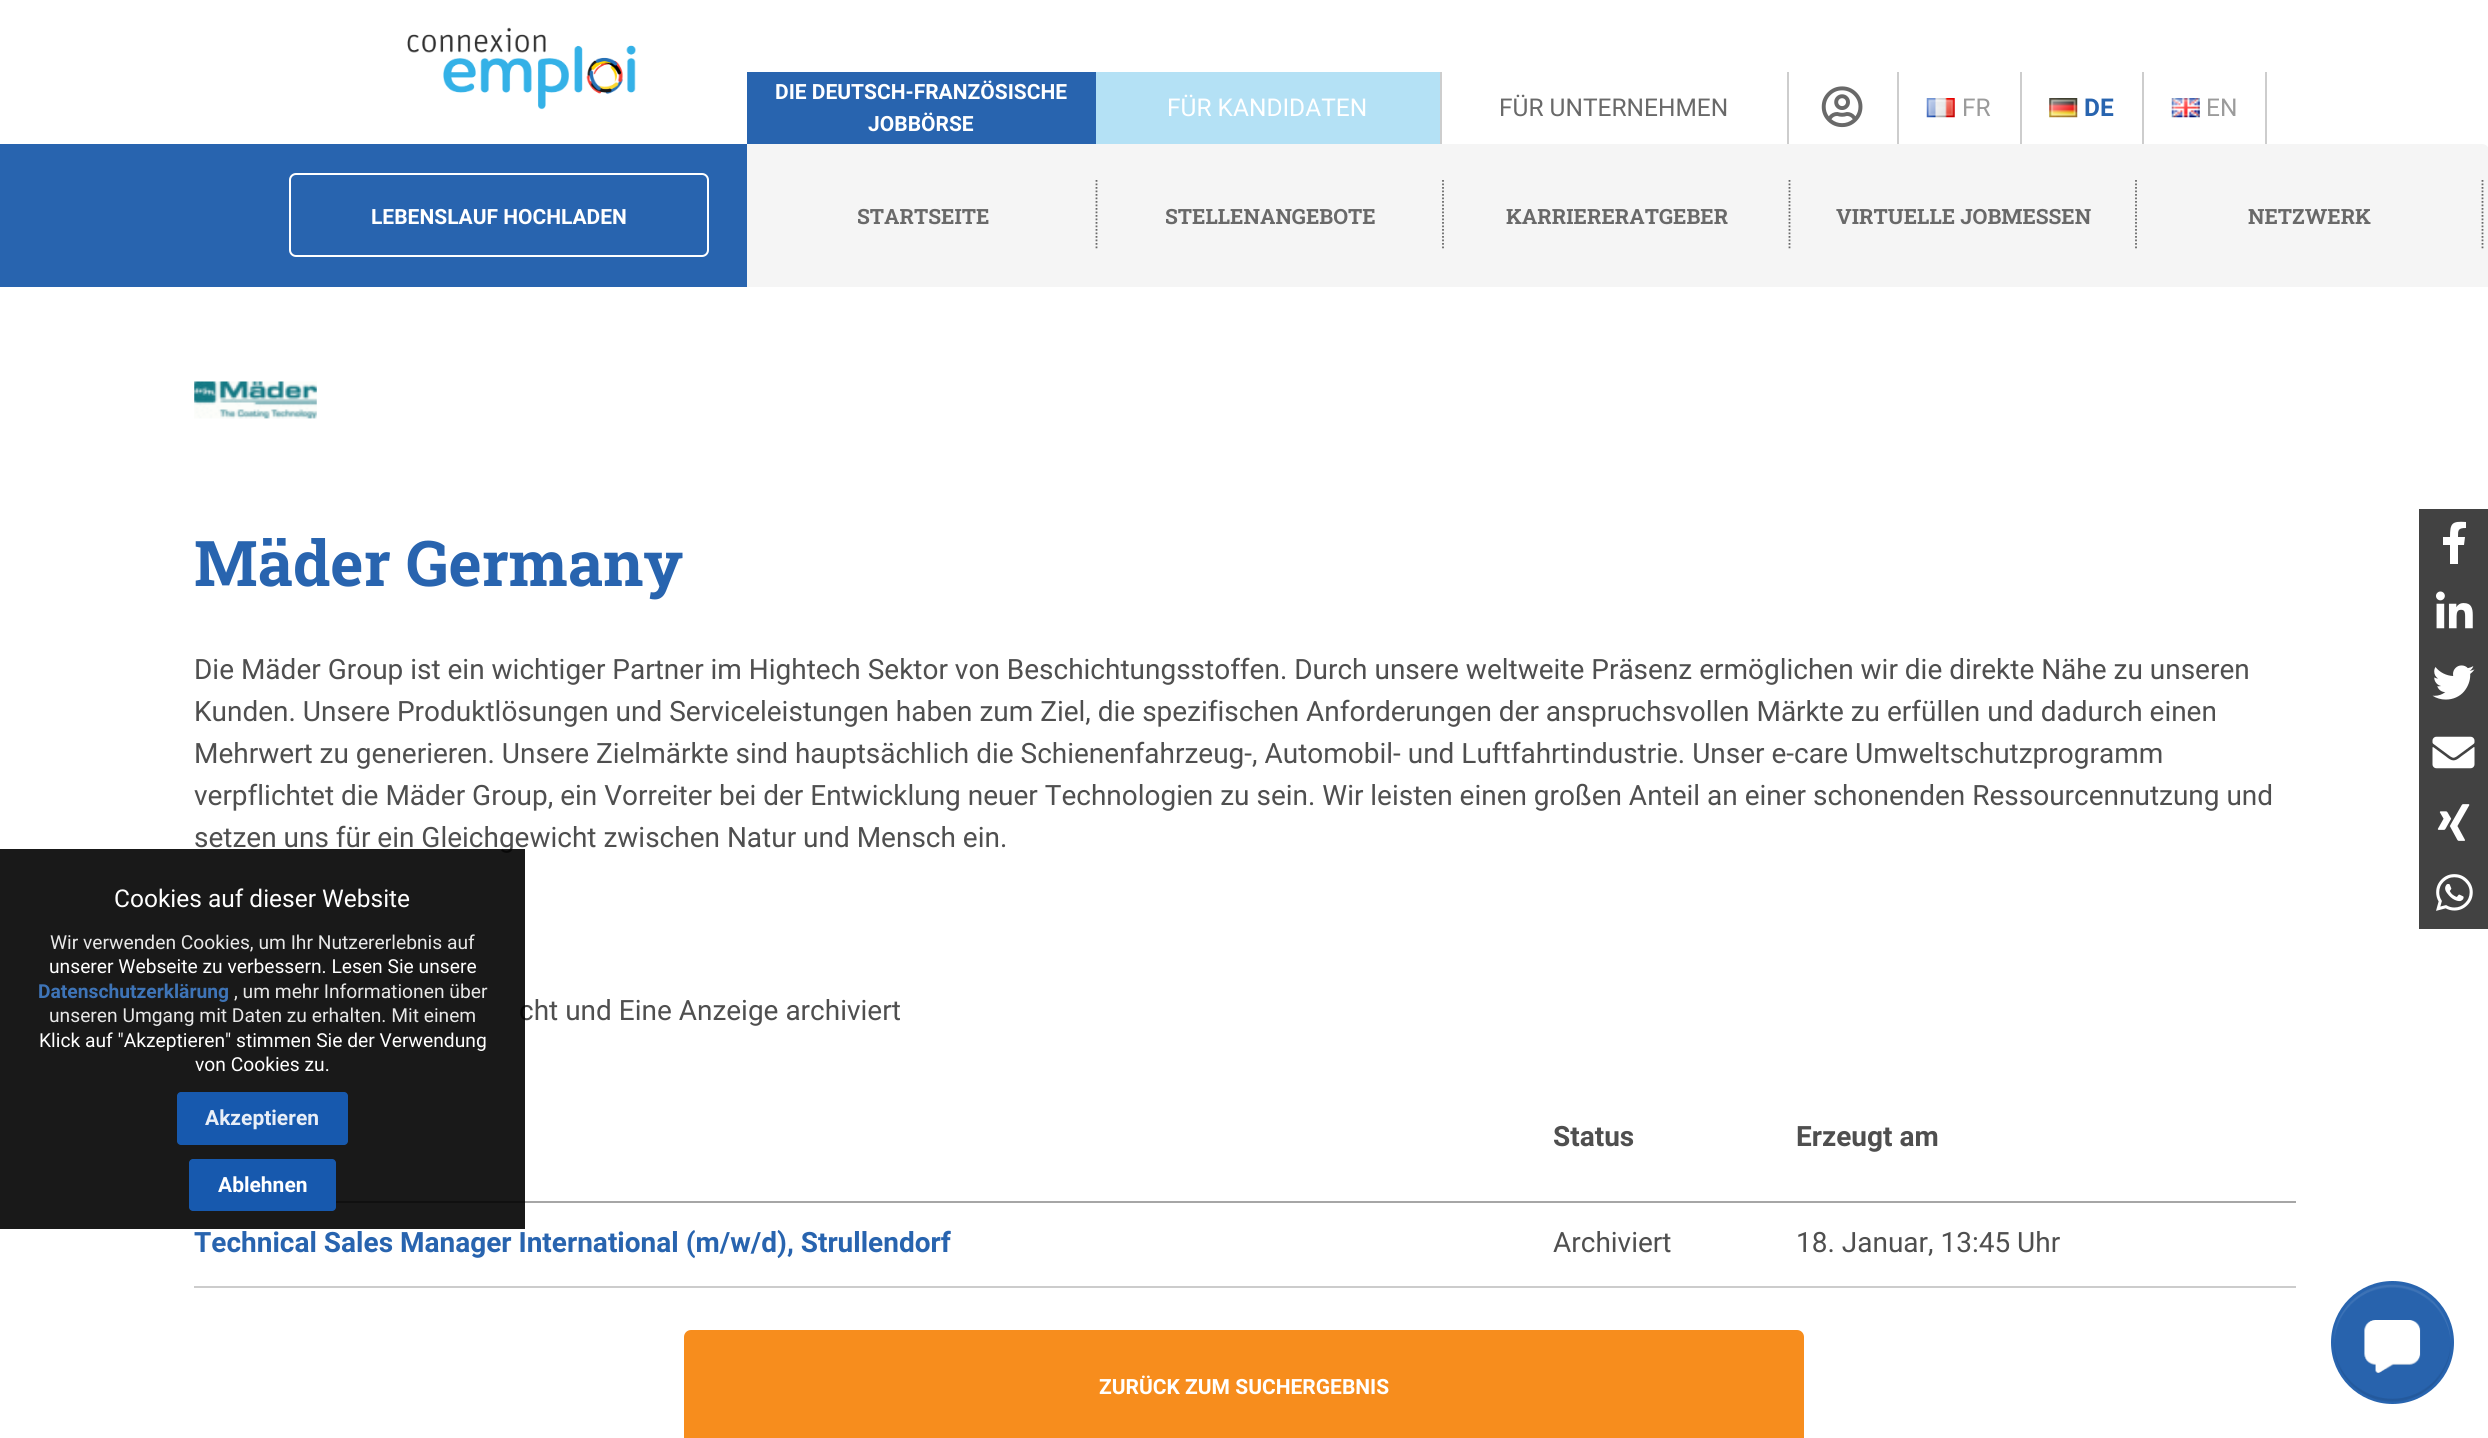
#include <cairo.h>
#include <math.h>
#include <stddef.h>


static void rgb(cairo_t *cr, int r, int g, int b)
{
	cairo_set_source_rgb(cr, r / 255.0, g / 255.0, b / 255.0);
}

static void face(cairo_t *cr, const char *family, double size, int italic, int bold)
{
	cairo_select_font_face(cr, family, italic ? CAIRO_FONT_SLANT_ITALIC : CAIRO_FONT_SLANT_NORMAL,
		bold ? CAIRO_FONT_WEIGHT_BOLD : CAIRO_FONT_WEIGHT_NORMAL);
	cairo_set_font_size(cr, size);
}

static void label(cairo_t *cr, double x, double y, const char *s)
{
	cairo_move_to(cr, x, y);
	cairo_show_text(cr, s);
}

static void rect(cairo_t *cr, double x, double y, double w, double h)
{
	cairo_rectangle(cr, x, y, w, h);
	cairo_fill(cr);
}

static void rrect(cairo_t *cr, double x, double y, double w, double h, double r)
{
	cairo_new_sub_path(cr);
	cairo_arc(cr, x + w - r, y + h - r, r, 0, M_PI / 2);
	cairo_arc(cr, x + r, y + h - r, r, M_PI / 2, M_PI);
	cairo_arc(cr, x + r, y + r, r, M_PI, 1.5 * M_PI);
	cairo_arc(cr, x + w - r, y + r, r, 1.5 * M_PI, 2 * M_PI);
	cairo_close_path(cr);
}

static void image(cairo_t *cr, const char *path, double x, double y, double w, double h)
{
	cairo_surface_t *image = cairo_image_surface_create_from_png(path);
	cairo_save(cr);
	cairo_set_source_surface(cr, image, x, y);
	cairo_rectangle(cr, x, y, w, h);
	cairo_fill(cr);
	cairo_restore(cr);
	cairo_surface_destroy(image);
}

static void draw(cairo_t *cr) {
	rgb(cr, 255, 255, 255);
	cairo_paint(cr);
	image(cr, "image0.png", 407, 27, 229, 83);
	rgb(cr, 40, 100, 175);
	rect(cr, 747, 72, 349, 72);
	face(cr, "Roboto", 21, 0, 1);
	rgb(cr, 255, 255, 255);
	label(cr, 775, 99, "DIE DEUTSCH-FRANZÖSISCHE");
	label(cr, 868, 131, "JOBBÖRSE");
	rgb(cr, 180, 225, 245);
	rect(cr, 1096, 72, 344, 72);
	rgb(cr, 205, 205, 205);
	rect(cr, 1440, 72, 2, 72);
	face(cr, "Roboto", 24.5, 0, 0);
	rgb(cr, 255, 255, 255);
	label(cr, 1167, 116, "FÜR KANDIDATEN");
	rgb(cr, 205, 205, 205);
	rect(cr, 1787, 72, 2, 72);
	rgb(cr, 105, 105, 105);
	label(cr, 1499, 116, "FÜR UNTERNEHMEN");
	rgb(cr, 205, 205, 205);
	rect(cr, 1897, 72, 2, 72);
	image(cr, "image1.png", 1821, 86, 42, 42);
	rect(cr, 2020, 72, 2, 72);
	image(cr, "image2.png", 1926, 98, 29, 20);
	rgb(cr, 155, 155, 155);
	label(cr, 1962, 116, "FR");
	rgb(cr, 205, 205, 205);
	rect(cr, 2142, 72, 2, 72);
	image(cr, "image3.png", 2049, 98, 29, 20);
	face(cr, "Roboto", 24.5, 0, 1);
	rgb(cr, 40, 100, 175);
	label(cr, 2084, 116, "DE");
	rgb(cr, 205, 205, 205);
	rect(cr, 2265, 72, 2, 72);
	image(cr, "image4.png", 2171, 98, 29, 20);
	face(cr, "Roboto", 24.5, 0, 0);
	rgb(cr, 155, 155, 155);
	label(cr, 2206, 116, "EN");
	rgb(cr, 40, 100, 175);
	rect(cr, 0, 144, 747, 143);
	rrect(cr, 290, 174, 418, 82, 6);
	rgb(cr, 255, 255, 255);
	cairo_stroke(cr);
	face(cr, "Roboto", 21, 0, 1);
	label(cr, 371, 224, "LEBENSLAUF HOCHLADEN");
	rgb(cr, 245, 245, 245);
	cairo_new_path(cr);
	cairo_move_to(cr, 747, 144);
	cairo_line_to(cr, 2482, 144);
	cairo_curve_to(cr, 2486, 144, 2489, 147, 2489, 151);
	cairo_line_to(cr, 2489, 287);
	cairo_line_to(cr, 747, 287);
	cairo_close_path(cr);
	cairo_fill(cr);
	cairo_new_path(cr);
	cairo_move_to(cr, 1096.5, 180);
	cairo_line_to(cr, 1096.5, 250);
	rgb(cr, 105, 105, 105);
	cairo_set_line_width(cr, 1.8);
	cairo_set_dash(cr, (double[]){1.75, 1.75}, 2, 0);
	cairo_stroke(cr);
	face(cr, "Roboto Slab", 21, 0, 1);
	label(cr, 857, 224, "STARTSEITE");
	cairo_new_path(cr);
	cairo_move_to(cr, 1443, 180);
	cairo_line_to(cr, 1443, 250);
	cairo_stroke(cr);
	label(cr, 1165, 224, "STELLENANGEBOTE");
	cairo_new_path(cr);
	cairo_move_to(cr, 1789.5, 180);
	cairo_line_to(cr, 1789.5, 250);
	cairo_stroke(cr);
	label(cr, 1506, 224, "KARRIERERATGEBER");
	cairo_new_path(cr);
	cairo_move_to(cr, 2136, 180);
	cairo_line_to(cr, 2136, 250);
	cairo_stroke(cr);
	label(cr, 1836, 224, "VIRTUELLE JOBMESSEN");
	cairo_new_path(cr);
	cairo_move_to(cr, 2482.5, 180);
	cairo_line_to(cr, 2482.5, 250);
	cairo_stroke(cr);
	label(cr, 2248, 224, "NETZWERK");
	image(cr, "image5.png", 194, 381, 123, 38);
	face(cr, "Roboto Slab", 63, 0, 1);
	rgb(cr, 40, 100, 175);
	label(cr, 194, 586, "Mäder Germany");
	face(cr, "Roboto", 28, 0, 0);
	rgb(cr, 79, 79, 79);
	label(cr, 194, 679, "Die Mäder Group ist ein wichtiger Partner im Hightech Sektor von Beschichtungsstoffen. Durch unsere weltweite Präsenz ermöglichen wir die direkte Nähe zu unseren");
	label(cr, 194, 721, "Kunden. Unsere Produktlösungen und Serviceleistungen haben zum Ziel, die spezifischen Anforderungen der anspruchsvollen Märkte zu erfüllen und dadurch einen");
	label(cr, 194, 763, "Mehrwert zu generieren. Unsere Zielmärkte sind hauptsächlich die Schienenfahrzeug-, Automobil- und Luftfahrtindustrie. Unser e-care Umweltschutzprogramm");
	label(cr, 194, 805, "verpflichtet die Mäder Group, ein Vorreiter bei der Entwicklung neuer Technologien zu sein. Wir leisten einen großen Anteil an einer schonenden Ressourcennutzung und");
	label(cr, 194, 847, "setzen uns für ein Gleichgewicht zwischen Natur und Mensch ein.");
	label(cr, 519, 1020, "cht und Eine Anzeige archiviert");
	face(cr, "Roboto", 28, 0, 1);
	label(cr, 1553, 1146, "Status");
	rgb(cr, 166, 166, 166);
	rect(cr, 194, 1201, 2102, 2);
	rgb(cr, 79, 79, 79);
	label(cr, 1796, 1146, "Erzeugt am");
	rgb(cr, 40, 100, 175);
	label(cr, 194, 1252, "Technical Sales Manager International (m/w/d), Strullendorf");
	face(cr, "Roboto", 28, 0, 0);
	rgb(cr, 79, 79, 79);
	label(cr, 1553, 1252, "Archiviert");
	rgb(cr, 204, 204, 204);
	rect(cr, 194, 1286, 2102, 2);
	rgb(cr, 79, 79, 79);
	label(cr, 1796, 1252, "18. Januar, 13:45 Uhr");
	rgb(cr, 247, 141, 29);
	rrect(cr, 684, 1330, 1120, 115, 7);
	cairo_fill(cr);
	face(cr, "Roboto", 21, 0, 1);
	rgb(cr, 255, 255, 255);
	label(cr, 1099, 1394, "ZURÜCK ZUM SUCHERGEBNIS");
	cairo_set_source_rgba(cr, 0, 0, 0, 0.9);
	rect(cr, 0, 849, 525, 380);
	face(cr, "Roboto", 24.5, 0, 0);
	rgb(cr, 255, 255, 255);
	label(cr, 114, 907, "Cookies auf dieser Website");
	face(cr, "Roboto", 19.25, 0, 0);
	rgb(cr, 232, 232, 232);
	label(cr, 50, 949, "Wir verwenden Cookies, um Ihr Nutzererlebnis auf");
	rgb(cr, 255, 255, 255);
	label(cr, 49, 973, "unserer Webseite zu verbessern. Lesen Sie unsere");
	face(cr, "Roboto", 19.25, 0, 1);
	rgb(cr, 62, 116, 183);
	label(cr, 38, 998, "Datenschutzerklärung");
	face(cr, "Roboto", 19.25, 0, 0);
	rgb(cr, 232, 232, 232);
	label(cr, 234, 998, ", um mehr Informationen über");
	label(cr, 49, 1022, "unseren Umgang mit Daten zu erhalten. Mit einem");
	rgb(cr, 255, 255, 255);
	label(cr, 39, 1047, "Klick auf \"Akzeptieren\" stimmen Sie der Verwendung");
	label(cr, 195, 1071, "von Cookies zu.");
	cairo_set_source_rgba(cr, 0.094, 0.38, 0.749, 0.9);
	rrect(cr, 177, 1092, 171, 53, 4);
	cairo_fill(cr);
	face(cr, "Roboto", 21, 0, 1);
	rgb(cr, 232, 238, 247);
	label(cr, 205, 1125, "Akzeptieren");
	cairo_set_source_rgba(cr, 0.094, 0.38, 0.749, 0.9);
	rrect(cr, 189, 1159, 147, 52, 4);
	cairo_fill(cr);
	rgb(cr, 255, 255, 255);
	label(cr, 218, 1192, "Ablehnen");
	rgb(cr, 66, 66, 66);
	rect(cr, 2419, 509, 69, 420);
	rgb(cr, 255, 255, 255);
	cairo_new_path(cr);
	cairo_move_to(cr, 2464, 545);
	cairo_line_to(cr, 2458, 545);
	cairo_line_to(cr, 2458, 564);
	cairo_line_to(cr, 2450, 564);
	cairo_line_to(cr, 2450, 545);
	cairo_line_to(cr, 2443, 545);
	cairo_line_to(cr, 2443, 537);
	cairo_line_to(cr, 2450, 537);
	cairo_curve_to(cr, 2450, 523, 2452, 521, 2466, 522);
	cairo_line_to(cr, 2466, 528);
	cairo_curve_to(cr, 2458, 528, 2458, 530, 2458, 537);
	cairo_line_to(cr, 2465, 537);
	cairo_close_path(cr);
	cairo_fill(cr);
	image(cr, "image6.png", 2436, 591, 37, 38);
	image(cr, "image7.png", 2432, 665, 43, 35);
	image(cr, "image8.png", 2432, 736, 43, 33);
	image(cr, "image9.png", 2437, 804, 33, 37);
	image(cr, "image10.png", 2436, 874, 37, 37);
	rgb(cr, 40, 100, 175);
	cairo_arc(cr, 2392.5, 1342.5, 61.5, 0, 2 * M_PI);
	cairo_fill(cr);
	image(cr, "image11.png", 2334, 1284, 117, 118);
}

int main(void) {
	cairo_surface_t *surface = cairo_image_surface_create(CAIRO_FORMAT_RGB24, 2488, 1438);
	cairo_t *cr = cairo_create(surface);
	cairo_font_options_t *options = cairo_font_options_create();
	cairo_font_options_set_hint_metrics(options, CAIRO_HINT_METRICS_OFF);
	cairo_font_options_set_hint_style(options, CAIRO_HINT_STYLE_NONE);
	cairo_set_font_options(cr, options);
	cairo_set_miter_limit(cr, 4);
	draw(cr);
	cairo_surface_write_to_png(surface, "render.png");
	cairo_font_options_destroy(options);
	cairo_destroy(cr);
	cairo_surface_destroy(surface);
	return 0;
}
